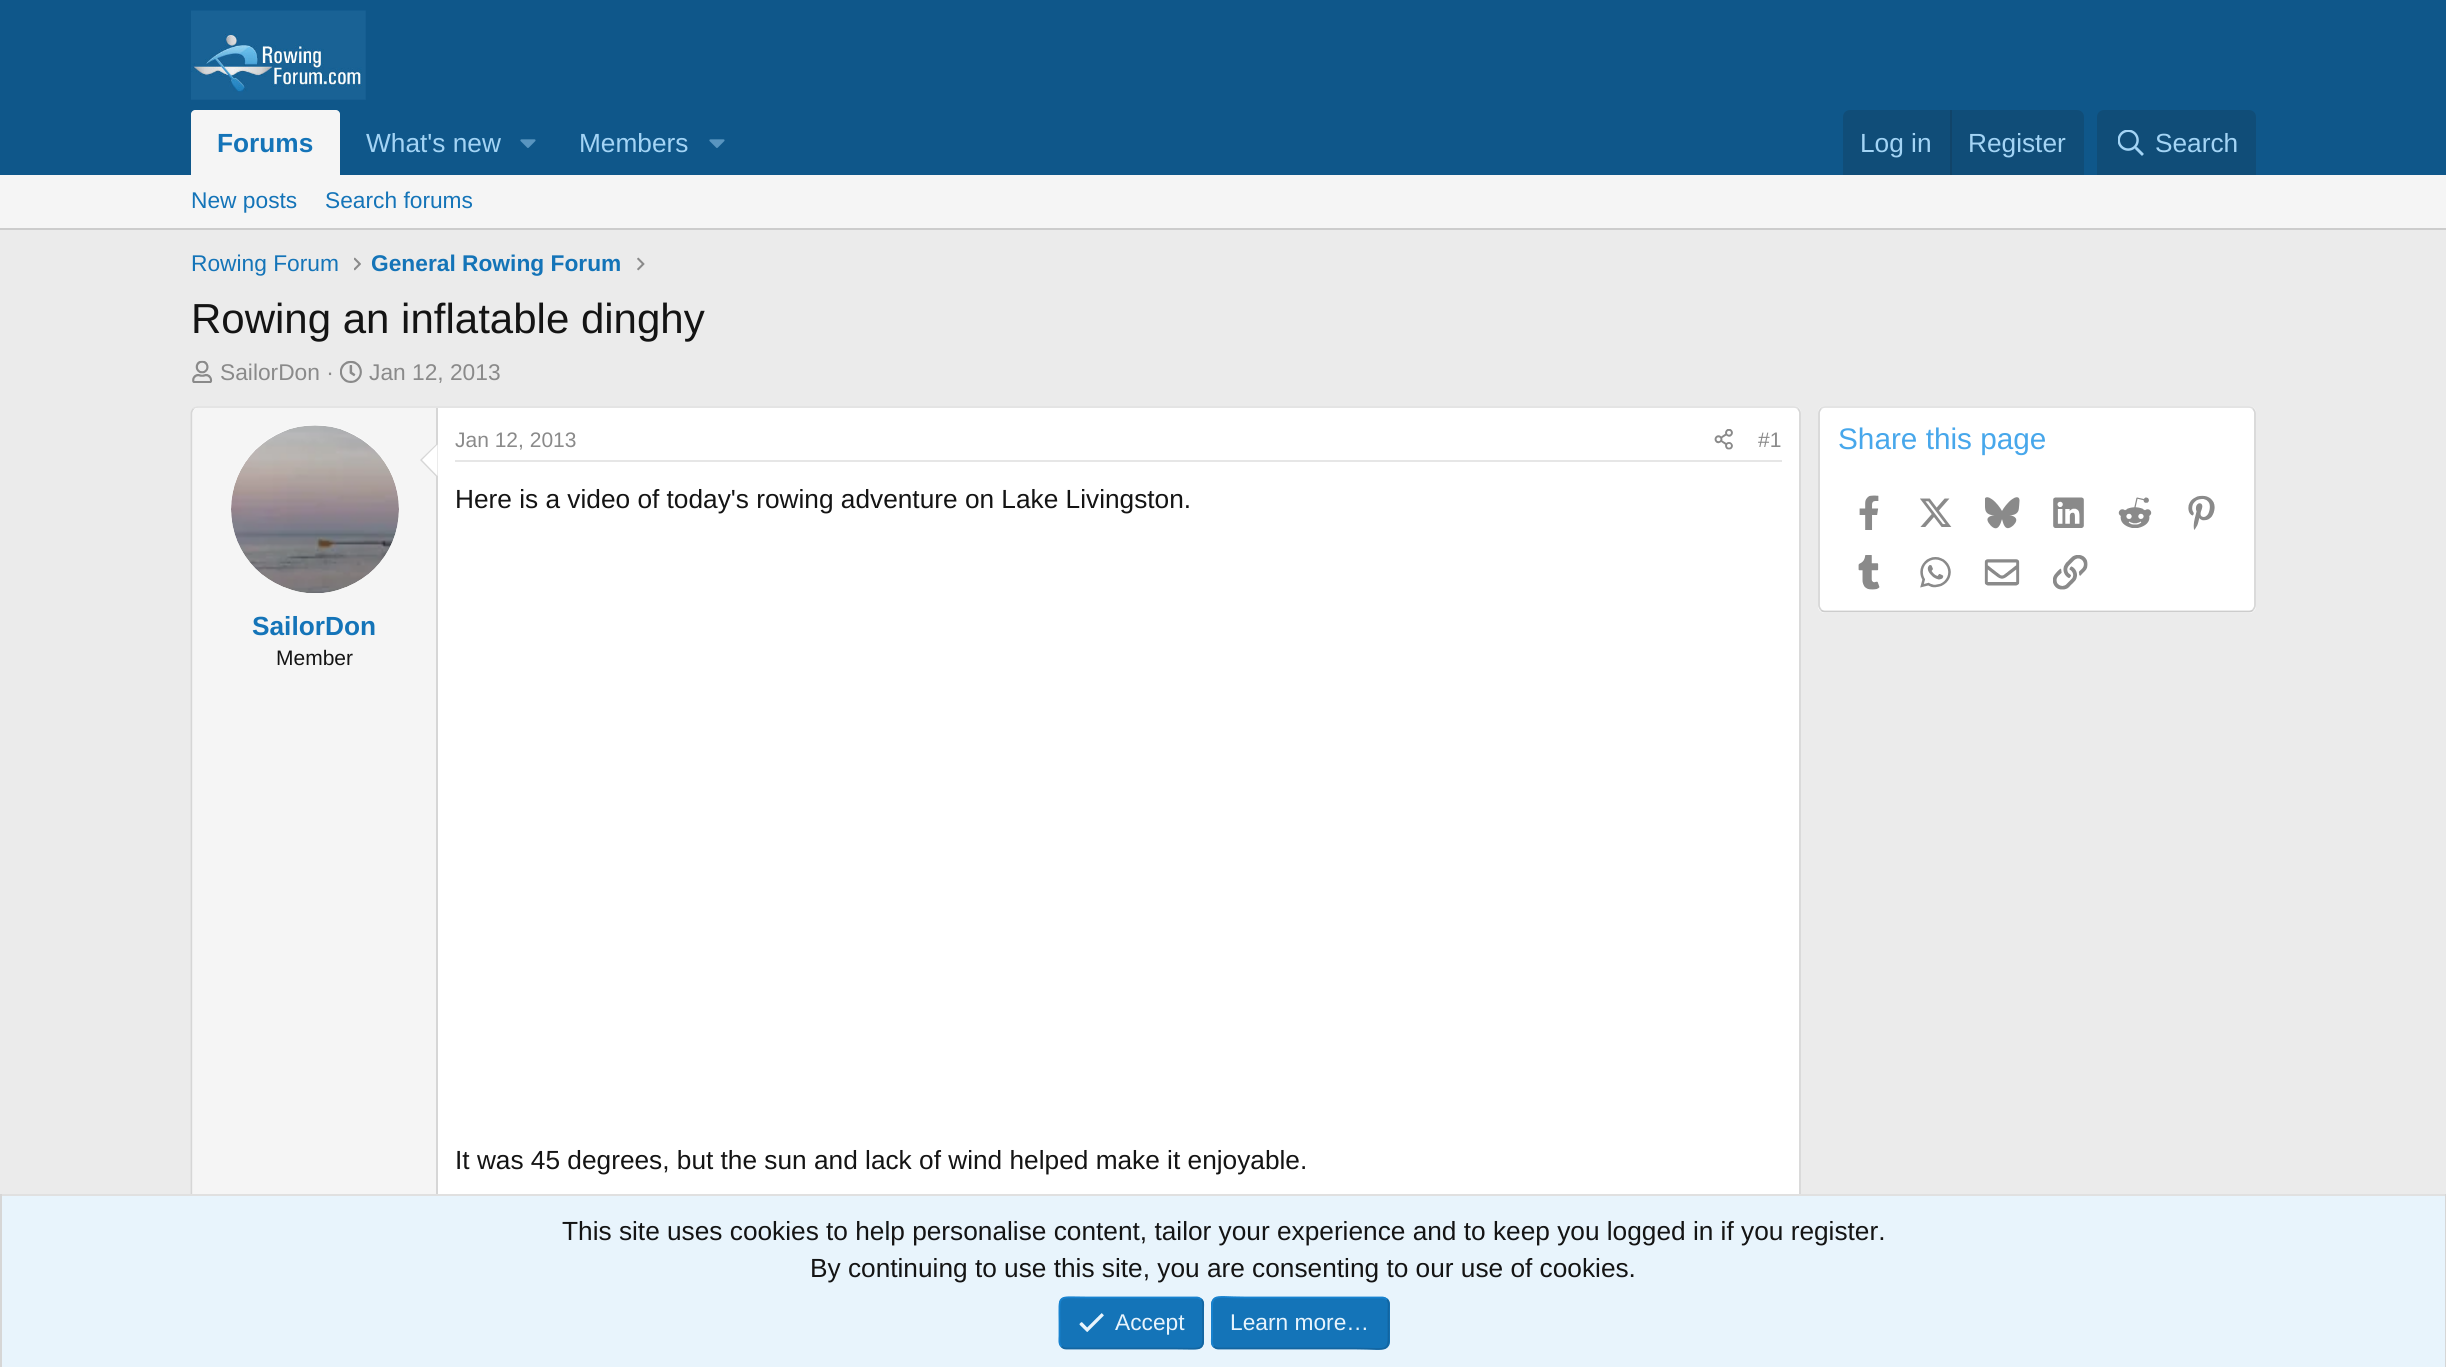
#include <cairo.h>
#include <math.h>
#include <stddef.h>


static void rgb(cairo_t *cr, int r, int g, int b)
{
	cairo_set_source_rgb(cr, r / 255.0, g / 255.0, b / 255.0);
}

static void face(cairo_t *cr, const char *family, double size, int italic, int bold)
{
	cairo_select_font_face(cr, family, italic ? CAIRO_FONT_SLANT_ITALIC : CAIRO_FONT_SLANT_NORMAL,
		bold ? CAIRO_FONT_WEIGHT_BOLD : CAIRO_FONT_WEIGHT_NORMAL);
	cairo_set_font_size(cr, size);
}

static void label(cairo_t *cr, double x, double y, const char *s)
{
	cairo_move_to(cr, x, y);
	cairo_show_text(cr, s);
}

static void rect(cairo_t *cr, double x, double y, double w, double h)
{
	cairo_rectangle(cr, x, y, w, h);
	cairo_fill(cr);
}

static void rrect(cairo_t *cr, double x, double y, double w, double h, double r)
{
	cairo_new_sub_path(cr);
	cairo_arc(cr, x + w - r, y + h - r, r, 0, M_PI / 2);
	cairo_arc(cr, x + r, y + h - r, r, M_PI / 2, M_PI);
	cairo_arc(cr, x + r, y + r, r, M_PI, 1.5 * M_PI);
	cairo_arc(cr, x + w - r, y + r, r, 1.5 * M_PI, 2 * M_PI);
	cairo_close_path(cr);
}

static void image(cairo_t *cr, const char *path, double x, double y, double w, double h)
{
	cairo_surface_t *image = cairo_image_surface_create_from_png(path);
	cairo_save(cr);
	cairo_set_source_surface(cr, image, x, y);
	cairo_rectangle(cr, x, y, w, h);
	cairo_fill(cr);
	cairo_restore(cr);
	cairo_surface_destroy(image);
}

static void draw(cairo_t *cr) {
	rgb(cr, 235, 235, 235);
	cairo_paint(cr);
	rgb(cr, 15, 87, 138);
	rect(cr, 0, 0, 2446, 175);
	image(cr, "image0.png", 191, 10, 175, 90);
	rgb(cr, 245, 245, 245);
	cairo_new_path(cr);
	cairo_move_to(cr, 195, 110);
	cairo_line_to(cr, 336, 110);
	cairo_curve_to(cr, 338, 110, 340, 112, 340, 114);
	cairo_line_to(cr, 340, 175);
	cairo_line_to(cr, 191, 175);
	cairo_line_to(cr, 191, 114);
	cairo_curve_to(cr, 191, 112, 193, 110, 195, 110);
	cairo_close_path(cr);
	cairo_fill(cr);
	face(cr, "Liberation Sans", 26.25, 0, 1);
	rgb(cr, 20, 116, 184);
	label(cr, 217, 152, "Forums");
	face(cr, "Liberation Sans", 26.25, 0, 0);
	rgb(cr, 163, 212, 245);
	label(cr, 366, 152, "What's new");
	image(cr, "image1.png", 520, 139, 16, 9);
	label(cr, 579, 152, "Members");
	image(cr, "image1.png", 709, 139, 16, 9);
	rgb(cr, 16, 77, 120);
	cairo_new_path(cr);
	cairo_move_to(cr, 1850, 110);
	cairo_line_to(cr, 2077, 110);
	cairo_curve_to(cr, 2081, 110, 2084, 113, 2084, 117);
	cairo_line_to(cr, 2084, 175);
	cairo_line_to(cr, 1843, 175);
	cairo_line_to(cr, 1843, 117);
	cairo_curve_to(cr, 1843, 113, 1846, 110, 1850, 110);
	cairo_close_path(cr);
	cairo_fill(cr);
	rgb(cr, 163, 212, 245);
	label(cr, 1860, 152, "Log in");
	rgb(cr, 17, 68, 105);
	rect(cr, 1950, 110, 2, 65);
	rgb(cr, 163, 212, 245);
	label(cr, 1968, 152, "Register");
	rgb(cr, 16, 77, 120);
	cairo_new_path(cr);
	cairo_move_to(cr, 2104, 110);
	cairo_line_to(cr, 2249, 110);
	cairo_curve_to(cr, 2253, 110, 2256, 113, 2256, 117);
	cairo_line_to(cr, 2256, 175);
	cairo_line_to(cr, 2097, 175);
	cairo_line_to(cr, 2097, 117);
	cairo_curve_to(cr, 2097, 113, 2100, 110, 2104, 110);
	cairo_close_path(cr);
	cairo_fill(cr);
	image(cr, "image2.png", 2118, 130, 26, 26);
	rgb(cr, 163, 212, 245);
	label(cr, 2155, 152, "Search");
	rgb(cr, 245, 245, 245);
	rect(cr, 0, 175, 2446, 53);
	rgb(cr, 204, 204, 204);
	rect(cr, 0, 228, 2446, 2);
	face(cr, "Liberation Sans", 22.75, 0, 0);
	rgb(cr, 20, 116, 184);
	label(cr, 191, 208, "New posts");
	label(cr, 325, 208, "Search forums");
	label(cr, 191, 271, "Rowing Forum");
	image(cr, "image3.png", 354, 257, 7, 14);
	face(cr, "Liberation Sans", 22.75, 0, 1);
	label(cr, 371, 271, "General Rowing Forum");
	image(cr, "image4.png", 637, 257, 8, 14);
	face(cr, "Liberation Sans", 42, 0, 0);
	rgb(cr, 20, 20, 20);
	label(cr, 191, 333, "Rowing an inflatable dinghy");
	image(cr, "image5.png", 192, 360, 21, 23);
	face(cr, "Liberation Sans", 22.75, 0, 0);
	rgb(cr, 138, 138, 138);
	label(cr, 220, 380, "SailorDon ·");
	image(cr, "image6.png", 340, 360, 22, 23);
	label(cr, 369, 380, "Jan 12, 2013");
	rgb(cr, 255, 255, 255);
	rrect(cr, 191, 406, 1610, 828, 7);
	cairo_fill(cr);
	cairo_new_path(cr);
	cairo_move_to(cr, 193.5, 408.5);
	cairo_curve_to(cr, 194.5, 407.5, 196, 407, 198, 407);
	cairo_line_to(cr, 1794, 407);
	cairo_curve_to(cr, 1795.5, 407, 1797, 407.5, 1798, 408.5);
	rgb(cr, 224, 224, 224);
	cairo_set_line_width(cr, 1.8);
	cairo_stroke(cr);
	cairo_new_path(cr);
	cairo_move_to(cr, 1798, 408.5);
	cairo_curve_to(cr, 1799, 410, 1800, 411.5, 1800, 413);
	cairo_line_to(cr, 1800, 1227);
	cairo_curve_to(cr, 1800, 1228.5, 1799, 1230, 1798, 1231);
	rgb(cr, 214, 214, 214);
	cairo_stroke(cr);
	cairo_new_path(cr);
	cairo_move_to(cr, 193.5, 1231);
	cairo_curve_to(cr, 192.5, 1230, 191.5, 1228.5, 191.5, 1227);
	cairo_line_to(cr, 191.5, 413);
	cairo_curve_to(cr, 191.5, 411.5, 192.5, 410, 193.5, 408.5);
	cairo_stroke(cr);
	rgb(cr, 245, 245, 245);
	cairo_new_path(cr);
	cairo_move_to(cr, 198, 408);
	cairo_line_to(cr, 438, 408);
	cairo_line_to(cr, 438, 1232);
	cairo_line_to(cr, 198, 1232);
	cairo_curve_to(cr, 195, 1232, 193, 1230, 193, 1227);
	cairo_line_to(cr, 193, 413);
	cairo_curve_to(cr, 193, 410, 195, 408, 198, 408);
	cairo_close_path(cr);
	cairo_fill(cr);
	rgb(cr, 214, 214, 214);
	rect(cr, 436, 408, 2, 786);
	rgb(cr, 255, 255, 255);
	cairo_arc(cr, 315, 509, 84, 0, 2 * M_PI);
	cairo_fill(cr);
	image(cr, "image7.png", 231, 425, 168, 168);
	rgb(cr, 214, 214, 214);
	cairo_new_path(cr);
	cairo_move_to(cr, 437.5, 443);
	cairo_line_to(cr, 437.5, 478);
	cairo_line_to(cr, 420, 460);
	cairo_close_path(cr);
	cairo_fill(cr);
	rgb(cr, 255, 255, 255);
	cairo_new_path(cr);
	cairo_move_to(cr, 437.5, 444.5);
	cairo_line_to(cr, 437.5, 476);
	cairo_line_to(cr, 422, 460);
	cairo_close_path(cr);
	cairo_fill(cr);
	face(cr, "Liberation Sans", 26.25, 0, 1);
	rgb(cr, 20, 116, 184);
	label(cr, 252, 635, "SailorDon");
	face(cr, "Liberation Sans", 21, 0, 0);
	rgb(cr, 20, 20, 20);
	label(cr, 276, 665, "Member");
	rgb(cr, 230, 230, 230);
	rect(cr, 455, 460, 1327, 2);
	rgb(cr, 138, 138, 138);
	label(cr, 455, 447, "Jan 12, 2013");
	image(cr, "image8.png", 1714, 429, 19, 21);
	label(cr, 1758, 447, "#1");
	face(cr, "Liberation Sans", 26.25, 0, 0);
	rgb(cr, 20, 20, 20);
	label(cr, 455, 508, "Here is a video of today's rowing adventure on Lake Livingston.");
	label(cr, 455, 1169, "It was 45 degrees, but the sun and lack of wind helped make it enjoyable.");
	rgb(cr, 255, 255, 255);
	rrect(cr, 1818, 406, 438, 207, 7);
	cairo_fill(cr);
	cairo_new_path(cr);
	cairo_move_to(cr, 1821, 408.5);
	cairo_curve_to(cr, 1822, 407.5, 1823.5, 407, 1825, 407);
	cairo_line_to(cr, 2249, 407);
	cairo_curve_to(cr, 2250.5, 407, 2252, 407.5, 2253, 408.5);
	rgb(cr, 224, 224, 224);
	cairo_stroke(cr);
	cairo_new_path(cr);
	cairo_move_to(cr, 2253, 408.5);
	cairo_curve_to(cr, 2254, 410, 2255, 411.5, 2255, 413);
	cairo_line_to(cr, 2255, 605.5);
	cairo_curve_to(cr, 2255, 607, 2254, 608.5, 2253, 610);
	rgb(cr, 214, 214, 214);
	cairo_stroke(cr);
	cairo_new_path(cr);
	cairo_move_to(cr, 2253, 610);
	cairo_curve_to(cr, 2252, 611, 2250.5, 611.5, 2249, 611.5);
	cairo_line_to(cr, 1825, 611.5);
	cairo_curve_to(cr, 1823.5, 611.5, 1822, 611, 1821, 610);
	rgb(cr, 204, 204, 204);
	cairo_stroke(cr);
	cairo_new_path(cr);
	cairo_move_to(cr, 1821, 610);
	cairo_curve_to(cr, 1820, 608.5, 1819, 607, 1819, 605.5);
	cairo_line_to(cr, 1819, 413);
	cairo_curve_to(cr, 1819, 411.5, 1820, 410, 1821, 408.5);
	rgb(cr, 214, 214, 214);
	cairo_stroke(cr);
	face(cr, "Liberation Sans", 29.75, 0, 0);
	rgb(cr, 71, 167, 235);
	label(cr, 1838, 449, "Share this page");
	image(cr, "image9.png", 1859, 495, 20, 35);
	image(cr, "image10.png", 1920, 498, 32, 29);
	image(cr, "image11.png", 1985, 497, 35, 32);
	image(cr, "image12.png", 2053, 497, 31, 31);
	image(cr, "image13.png", 2118, 497, 34, 31);
	image(cr, "image14.png", 2188, 495, 27, 35);
	image(cr, "image15.png", 1858, 555, 22, 35);
	image(cr, "image16.png", 1920, 557, 31, 31);
	image(cr, "image17.png", 1984, 559, 36, 27);
	image(cr, "image18.png", 2053, 555, 35, 35);
	rgb(cr, 232, 244, 252);
	rect(cr, 2, 1196, 2443, 171);
	rgb(cr, 224, 224, 224);
	rect(cr, 0, 1194, 2446, 2);
	rgb(cr, 214, 214, 214);
	rect(cr, 2445, 1194, 1, 173);
	rect(cr, 0, 1194, 2, 173);
	face(cr, "Liberation Sans", 26.25, 0, 0);
	rgb(cr, 20, 20, 20);
	label(cr, 562, 1240, "This site uses cookies to help personalise content, tailor your experience and to keep you logged in if you register.");
	label(cr, 810, 1277, "By continuing to use this site, you are consenting to our use of cookies.");
	rgb(cr, 20, 116, 184);
	rrect(cr, 1059, 1297, 145, 52, 7);
	cairo_fill(cr);
	cairo_new_path(cr);
	cairo_move_to(cr, 1201.5, 1299.5);
	cairo_curve_to(cr, 1204, 1302, 1203, 1307, 1203, 1310);
	cairo_line_to(cr, 1203, 1323);
	cairo_curve_to(cr, 1203, 1353, 1207, 1348.5, 1175, 1348.5);
	cairo_line_to(cr, 1066, 1348.5);
	cairo_curve_to(cr, 1064, 1348.5, 1062.5, 1347.5, 1061.5, 1346.5);
	rgb(cr, 18, 101, 161);
	cairo_stroke(cr);
	cairo_new_path(cr);
	cairo_move_to(cr, 1061.5, 1346.5);
	cairo_curve_to(cr, 1058.5, 1344, 1059.5, 1339, 1059.5, 1336);
	cairo_line_to(cr, 1059.5, 1323);
	cairo_curve_to(cr, 1059.5, 1293, 1056, 1297.5, 1087.5, 1297.5);
	cairo_line_to(cr, 1197, 1297.5);
	cairo_curve_to(cr, 1198.5, 1297.5, 1200, 1298.5, 1201.5, 1299.5);
	rgb(cr, 23, 130, 207);
	cairo_stroke(cr);
	image(cr, "image19.png", 1079, 1313, 25, 19);
	face(cr, "Liberation Sans", 22.75, 0, 0);
	rgb(cr, 232, 244, 252);
	label(cr, 1115, 1330, "Accept");
	rgb(cr, 20, 116, 184);
	rrect(cr, 1211, 1297, 179, 52, 7);
	cairo_fill(cr);
	cairo_new_path(cr);
	cairo_move_to(cr, 1387, 1299.5);
	cairo_curve_to(cr, 1389.5, 1302, 1388.5, 1307, 1388.5, 1310);
	cairo_line_to(cr, 1388.5, 1323);
	cairo_curve_to(cr, 1388.5, 1355, 1392, 1348.5, 1355, 1348.5);
	cairo_line_to(cr, 1218, 1348.5);
	cairo_curve_to(cr, 1216.5, 1348.5, 1215, 1347.5, 1213.5, 1346.5);
	rgb(cr, 18, 101, 161);
	cairo_stroke(cr);
	cairo_new_path(cr);
	cairo_move_to(cr, 1213.5, 1346.5);
	cairo_curve_to(cr, 1211, 1344, 1212, 1339, 1212, 1336);
	cairo_line_to(cr, 1212, 1323);
	cairo_curve_to(cr, 1212, 1291, 1208.5, 1297.5, 1245.5, 1297.5);
	cairo_line_to(cr, 1382.5, 1297.5);
	cairo_curve_to(cr, 1384, 1297.5, 1385.5, 1298.5, 1387, 1299.5);
	rgb(cr, 23, 130, 207);
	cairo_stroke(cr);
	rgb(cr, 232, 244, 252);
	label(cr, 1230, 1330, "Learn more…");
}

int main(void) {
	cairo_surface_t *surface = cairo_image_surface_create(CAIRO_FORMAT_RGB24, 2446, 1367);
	cairo_t *cr = cairo_create(surface);
	cairo_font_options_t *options = cairo_font_options_create();
	cairo_font_options_set_hint_metrics(options, CAIRO_HINT_METRICS_OFF);
	cairo_font_options_set_hint_style(options, CAIRO_HINT_STYLE_NONE);
	cairo_set_font_options(cr, options);
	cairo_set_miter_limit(cr, 4);
	draw(cr);
	cairo_surface_write_to_png(surface, "render.png");
	cairo_font_options_destroy(options);
	cairo_destroy(cr);
	cairo_surface_destroy(surface);
	return 0;
}
